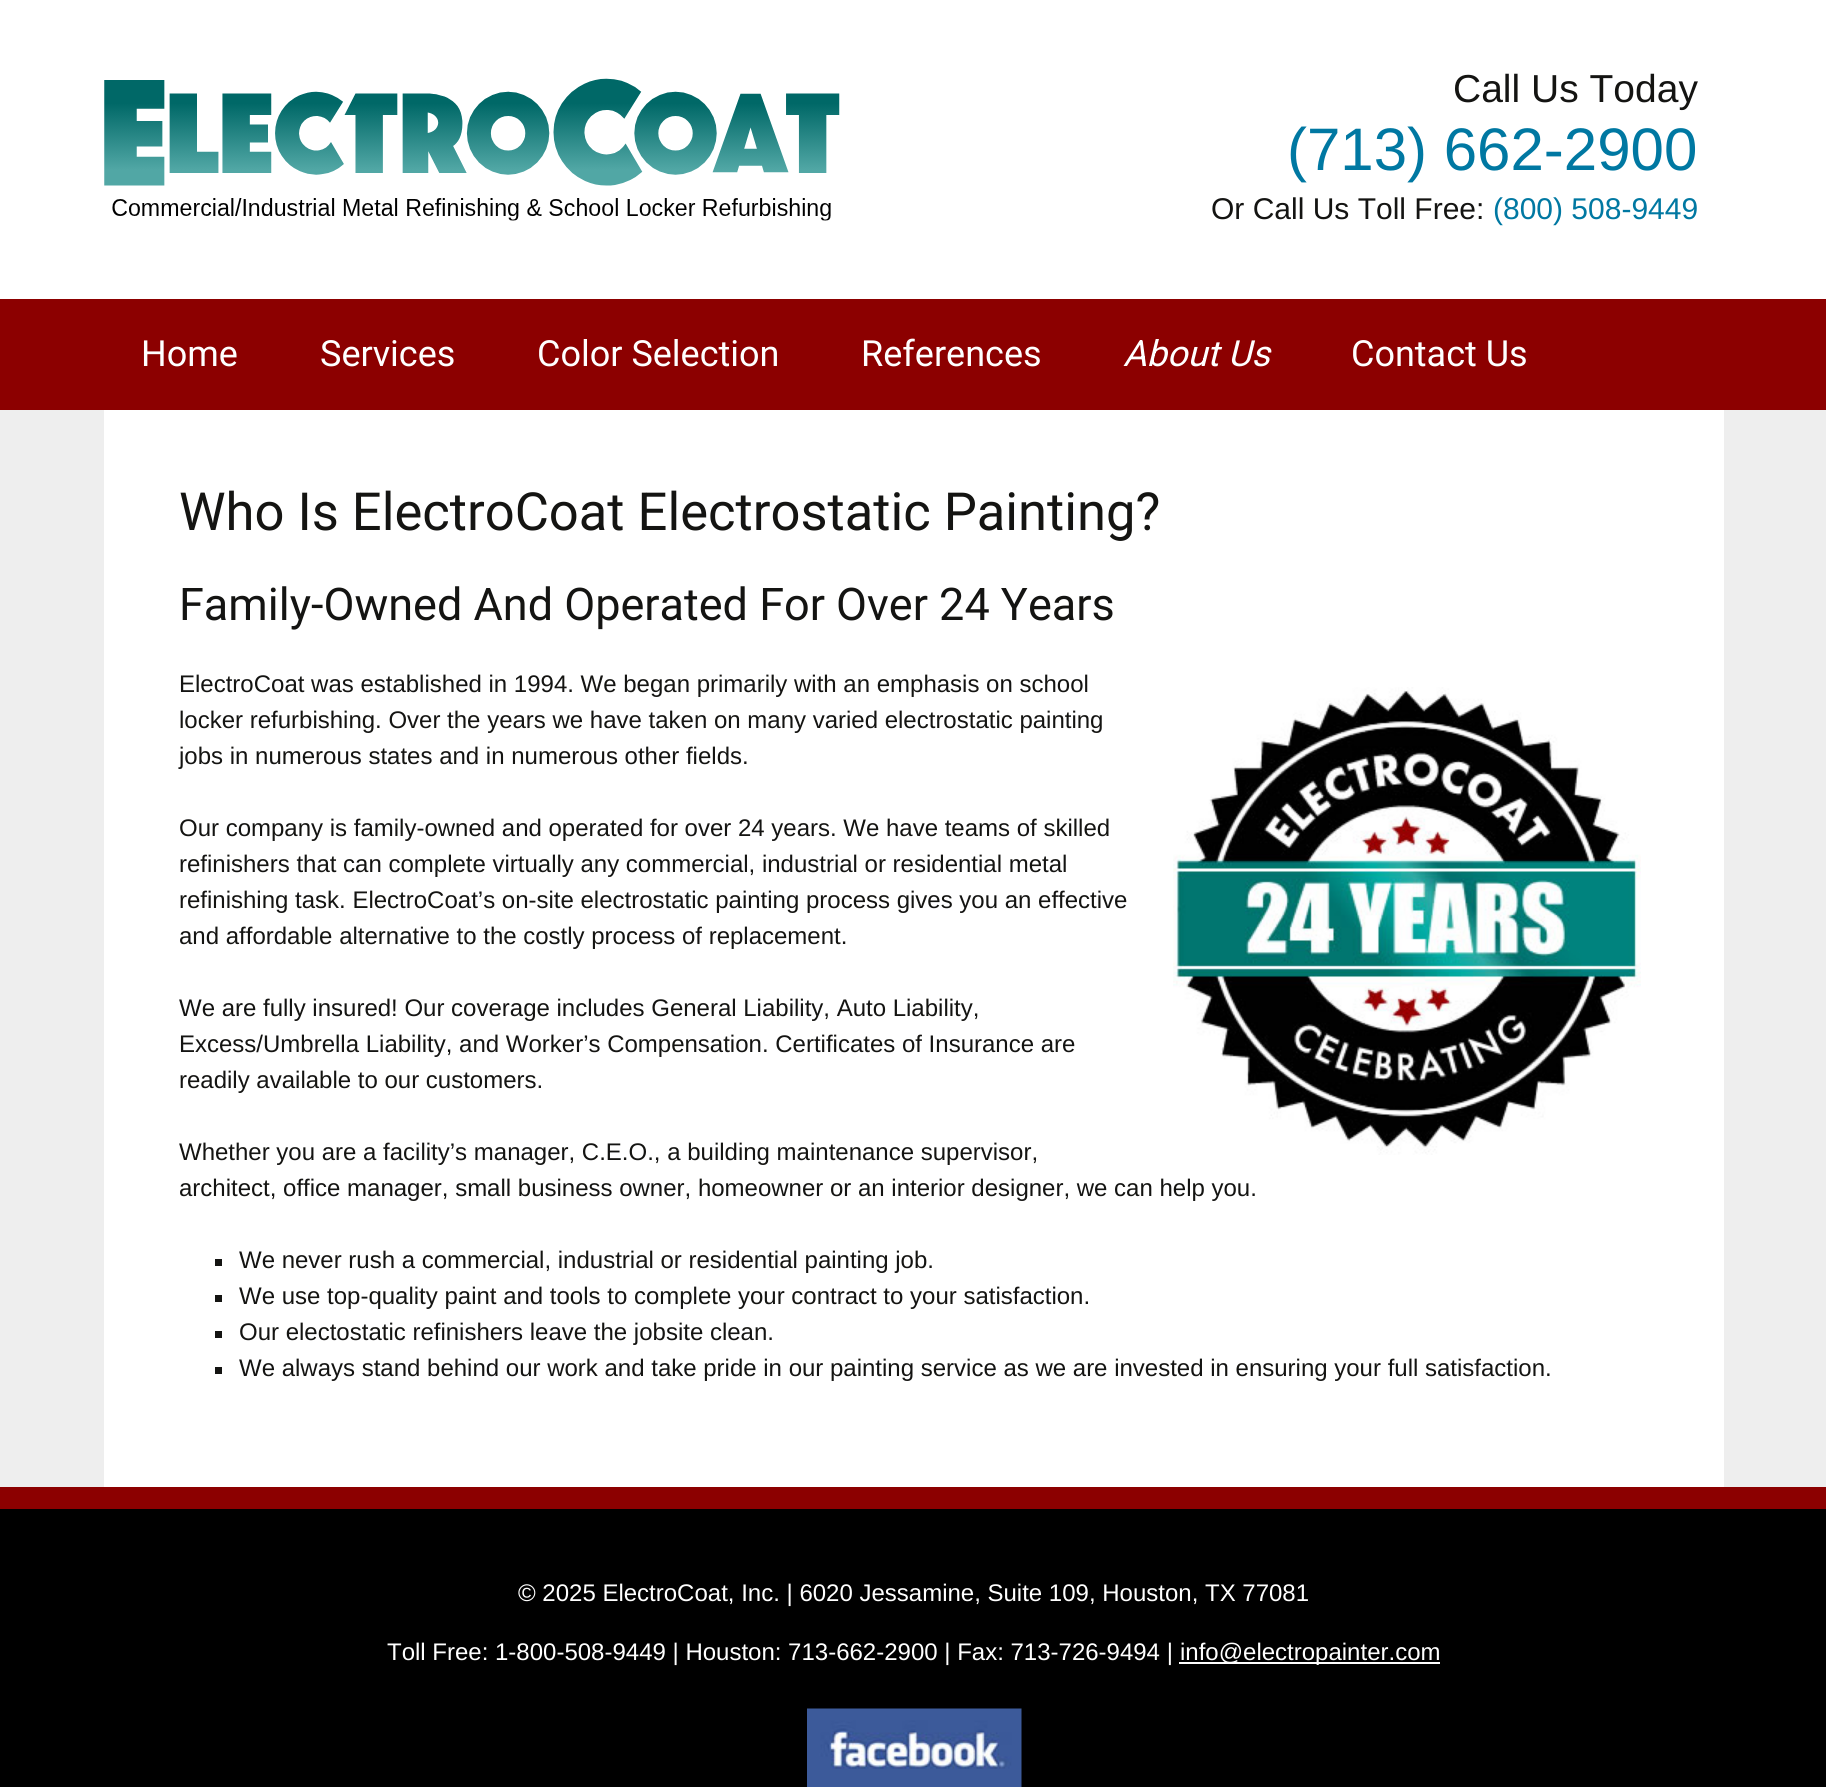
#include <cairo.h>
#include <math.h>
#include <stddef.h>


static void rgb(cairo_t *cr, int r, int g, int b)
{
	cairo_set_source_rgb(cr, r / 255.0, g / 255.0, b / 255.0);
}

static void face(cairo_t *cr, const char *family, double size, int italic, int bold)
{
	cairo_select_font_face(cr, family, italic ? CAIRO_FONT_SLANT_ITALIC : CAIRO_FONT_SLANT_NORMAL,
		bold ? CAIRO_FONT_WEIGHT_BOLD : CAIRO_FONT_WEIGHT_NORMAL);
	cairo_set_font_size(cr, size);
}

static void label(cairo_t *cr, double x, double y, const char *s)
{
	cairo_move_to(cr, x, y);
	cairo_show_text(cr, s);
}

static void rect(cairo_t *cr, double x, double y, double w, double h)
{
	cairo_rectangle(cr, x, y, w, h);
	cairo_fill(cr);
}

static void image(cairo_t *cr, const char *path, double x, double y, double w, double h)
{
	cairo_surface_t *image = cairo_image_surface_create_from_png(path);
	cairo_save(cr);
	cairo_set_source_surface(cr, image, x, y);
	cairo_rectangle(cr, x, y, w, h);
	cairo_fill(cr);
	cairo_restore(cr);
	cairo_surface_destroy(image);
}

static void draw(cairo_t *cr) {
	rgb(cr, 255, 255, 255);
	cairo_paint(cr);
	image(cr, "image0.png", 104, 78, 736, 143);
	face(cr, "Liberation Sans", 39, 0, 0);
	rgb(cr, 20, 20, 18);
	label(cr, 1453, 102, "Call Us Today");
	face(cr, "Liberation Sans", 60, 0, 0);
	rgb(cr, 0, 120, 162);
	label(cr, 1287, 170, "(713) 662-2900");
	face(cr, "Liberation Sans", 30, 0, 0);
	rgb(cr, 20, 20, 18);
	label(cr, 1211, 219, "Or Call Us Toll Free:");
	rgb(cr, 0, 120, 162);
	label(cr, 1493, 219, "(800) 508-9449");
	rgb(cr, 140, 0, 0);
	rect(cr, 0, 299, 1826, 111);
	face(cr, "Roboto", 36, 0, 0);
	rgb(cr, 255, 255, 255);
	label(cr, 141, 366, "Home");
	label(cr, 320, 366, "Services");
	label(cr, 537, 366, "Color Selection");
	label(cr, 861, 366, "References");
	face(cr, "Roboto", 36, 1, 0);
	label(cr, 1123, 366, "About Us");
	face(cr, "Roboto", 36, 0, 0);
	label(cr, 1351, 366, "Contact Us");
	rgb(cr, 238, 238, 238);
	rect(cr, 0, 410, 1826, 1077);
	rgb(cr, 255, 255, 255);
	rect(cr, 104, 410, 1620, 1077);
	face(cr, "Roboto", 52.5, 0, 0);
	rgb(cr, 20, 20, 18);
	label(cr, 179, 530, "Who Is ElectroCoat Electrostatic Painting?");
	face(cr, "Roboto", 45, 0, 0);
	label(cr, 179, 620, "Family-Owned And Operated For Over 24 Years");
	face(cr, "Liberation Sans", 24, 0, 0);
	label(cr, 179, 692, "ElectroCoat was established in 1994. We began primarily with an emphasis on school");
	image(cr, "image1.png", 1173, 687, 468, 468);
	label(cr, 179, 728, "locker refurbishing. Over the years we have taken on many varied electrostatic painting");
	label(cr, 179, 764, "jobs in numerous states and in numerous other fields.");
	label(cr, 179, 836, "Our company is family-owned and operated for over 24 years. We have teams of skilled");
	label(cr, 179, 872, "refinishers that can complete virtually any commercial, industrial or residential metal");
	label(cr, 179, 908, "refinishing task. ElectroCoat’s on-site electrostatic painting process gives you an effective");
	label(cr, 179, 944, "and affordable alternative to the costly process of replacement.");
	label(cr, 179, 1016, "We are fully insured! Our coverage includes General Liability, Auto Liability,");
	label(cr, 179, 1052, "Excess/Umbrella Liability, and Worker’s Compensation. Certificates of Insurance are");
	label(cr, 179, 1088, "readily available to our customers.");
	label(cr, 179, 1160, "Whether you are a facility’s manager, C.E.O., a building maintenance supervisor,");
	label(cr, 179, 1196, "architect, office manager, small business owner, homeowner or an interior designer, we can help you.");
	rect(cr, 215, 1259, 7, 7);
	label(cr, 239, 1268, "We never rush a commercial, industrial or residential painting job.");
	rect(cr, 215, 1295, 7, 7);
	label(cr, 239, 1304, "We use top-quality paint and tools to complete your contract to your satisfaction.");
	rect(cr, 215, 1331, 7, 7);
	label(cr, 239, 1340, "Our electostatic refinishers leave the jobsite clean.");
	rect(cr, 215, 1367, 7, 7);
	label(cr, 239, 1376, "We always stand behind our work and take pride in our painting service as we are invested in ensuring your full satisfaction.");
	rgb(cr, 0, 0, 0);
	rect(cr, 0, 1509, 1826, 278);
	rgb(cr, 140, 0, 0);
	rect(cr, 0, 1487, 1826, 22);
	rgb(cr, 255, 255, 255);
	label(cr, 518, 1601, "© 2025 ElectroCoat, Inc. | 6020 Jessamine, Suite 109, Houston, TX 77081");
	label(cr, 387, 1660, "Toll Free: 1-800-508-9449 | Houston: 713-662-2900 | Fax: 713-726-9494 |");
	rect(cr, 1179, 1662, 261, 2);
	label(cr, 1180, 1660, "info@electropainter.com");
	image(cr, "image2.png", 807, 1708, 215, 79);
}

int main(void) {
	cairo_surface_t *surface = cairo_image_surface_create(CAIRO_FORMAT_RGB24, 1826, 1787);
	cairo_t *cr = cairo_create(surface);
	cairo_font_options_t *options = cairo_font_options_create();
	cairo_font_options_set_hint_metrics(options, CAIRO_HINT_METRICS_OFF);
	cairo_font_options_set_hint_style(options, CAIRO_HINT_STYLE_NONE);
	cairo_set_font_options(cr, options);
	cairo_set_miter_limit(cr, 4);
	draw(cr);
	cairo_surface_write_to_png(surface, "render.png");
	cairo_font_options_destroy(options);
	cairo_destroy(cr);
	cairo_surface_destroy(surface);
	return 0;
}
